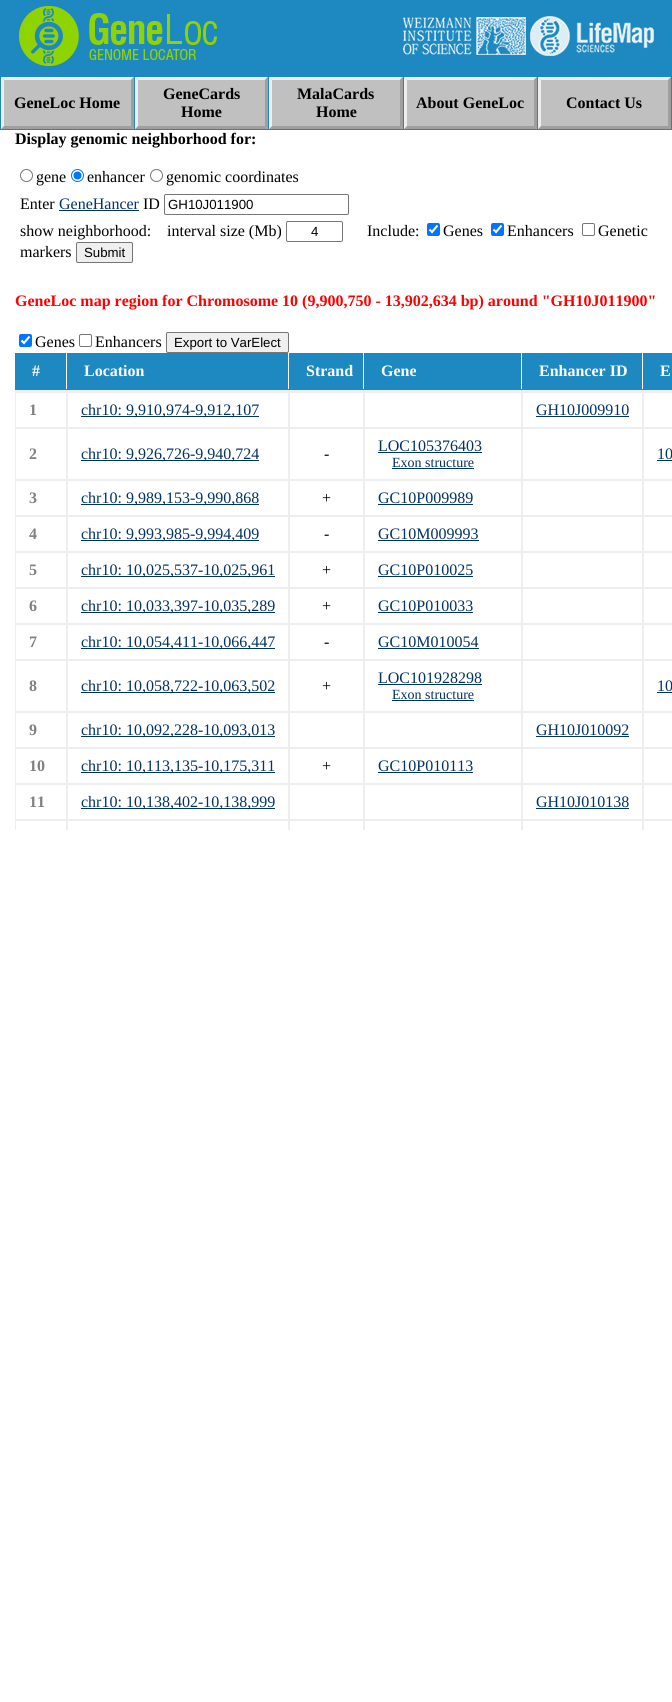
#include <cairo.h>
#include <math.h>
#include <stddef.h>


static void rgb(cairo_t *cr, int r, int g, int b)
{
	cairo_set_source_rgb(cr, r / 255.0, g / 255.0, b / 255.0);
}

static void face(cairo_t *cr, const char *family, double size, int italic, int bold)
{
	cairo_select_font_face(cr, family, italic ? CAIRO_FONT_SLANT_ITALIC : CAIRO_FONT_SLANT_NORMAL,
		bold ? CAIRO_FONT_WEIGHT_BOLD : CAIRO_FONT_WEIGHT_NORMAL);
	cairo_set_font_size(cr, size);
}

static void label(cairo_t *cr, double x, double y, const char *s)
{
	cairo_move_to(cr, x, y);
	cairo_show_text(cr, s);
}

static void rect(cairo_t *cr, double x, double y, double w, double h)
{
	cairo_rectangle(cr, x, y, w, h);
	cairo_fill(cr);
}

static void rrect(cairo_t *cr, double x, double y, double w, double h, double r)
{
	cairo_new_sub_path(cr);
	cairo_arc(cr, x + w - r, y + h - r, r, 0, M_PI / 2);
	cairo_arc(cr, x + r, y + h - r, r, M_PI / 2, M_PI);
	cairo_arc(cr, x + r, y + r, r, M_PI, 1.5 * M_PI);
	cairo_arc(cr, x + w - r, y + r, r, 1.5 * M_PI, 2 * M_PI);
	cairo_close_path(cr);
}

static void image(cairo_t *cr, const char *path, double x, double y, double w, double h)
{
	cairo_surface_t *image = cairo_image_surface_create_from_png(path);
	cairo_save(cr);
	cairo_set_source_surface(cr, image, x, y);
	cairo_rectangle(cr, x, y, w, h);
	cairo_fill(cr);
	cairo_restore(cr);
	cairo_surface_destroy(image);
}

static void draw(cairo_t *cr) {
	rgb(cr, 255, 255, 255);
	cairo_paint(cr);
	rgb(cr, 30, 136, 193);
	rect(cr, 0, 0, 672, 130);
	image(cr, "image0.png", 19, 6, 198, 60);
	image(cr, "image1.png", 403, 17, 123, 38);
	image(cr, "image2.png", 530, 16, 124, 40);
	rgb(cr, 192, 192, 192);
	rect(cr, 1, 77, 133, 52);
	rgb(cr, 238, 238, 238);
	cairo_new_path(cr);
	cairo_move_to(cr, 1, 77);
	cairo_line_to(cr, 134, 77);
	cairo_line_to(cr, 131, 80);
	cairo_line_to(cr, 4, 80);
	cairo_close_path(cr);
	cairo_fill(cr);
	rgb(cr, 159, 159, 159);
	cairo_new_path(cr);
	cairo_move_to(cr, 134, 77);
	cairo_line_to(cr, 134, 129);
	cairo_line_to(cr, 131, 126);
	cairo_line_to(cr, 131, 80);
	cairo_close_path(cr);
	cairo_fill(cr);
	cairo_new_path(cr);
	cairo_move_to(cr, 134, 129);
	cairo_line_to(cr, 1, 129);
	cairo_line_to(cr, 4, 126);
	cairo_line_to(cr, 131, 126);
	cairo_close_path(cr);
	cairo_fill(cr);
	rgb(cr, 238, 238, 238);
	cairo_new_path(cr);
	cairo_move_to(cr, 1, 129);
	cairo_line_to(cr, 1, 77);
	cairo_line_to(cr, 4, 80);
	cairo_line_to(cr, 4, 126);
	cairo_close_path(cr);
	cairo_fill(cr);
	face(cr, "Liberation Serif", 16, 0, 1);
	rgb(cr, 0, 0, 0);
	label(cr, 14, 108, "GeneLoc Home");
	rgb(cr, 192, 192, 192);
	rect(cr, 135, 77, 133, 52);
	rgb(cr, 238, 238, 238);
	cairo_new_path(cr);
	cairo_move_to(cr, 135, 77);
	cairo_line_to(cr, 268, 77);
	cairo_line_to(cr, 265, 80);
	cairo_line_to(cr, 138, 80);
	cairo_close_path(cr);
	cairo_fill(cr);
	rgb(cr, 159, 159, 159);
	cairo_new_path(cr);
	cairo_move_to(cr, 268, 77);
	cairo_line_to(cr, 268, 129);
	cairo_line_to(cr, 265, 126);
	cairo_line_to(cr, 265, 80);
	cairo_close_path(cr);
	cairo_fill(cr);
	cairo_new_path(cr);
	cairo_move_to(cr, 268, 129);
	cairo_line_to(cr, 135, 129);
	cairo_line_to(cr, 138, 126);
	cairo_line_to(cr, 265, 126);
	cairo_close_path(cr);
	cairo_fill(cr);
	rgb(cr, 238, 238, 238);
	cairo_new_path(cr);
	cairo_move_to(cr, 135, 129);
	cairo_line_to(cr, 135, 77);
	cairo_line_to(cr, 138, 80);
	cairo_line_to(cr, 138, 126);
	cairo_close_path(cr);
	cairo_fill(cr);
	rgb(cr, 0, 0, 0);
	label(cr, 163, 99, "GeneCards");
	label(cr, 181, 117, "Home");
	rgb(cr, 192, 192, 192);
	rect(cr, 269, 77, 134, 52);
	rgb(cr, 238, 238, 238);
	cairo_new_path(cr);
	cairo_move_to(cr, 269, 77);
	cairo_line_to(cr, 403, 77);
	cairo_line_to(cr, 400, 80);
	cairo_line_to(cr, 272, 80);
	cairo_close_path(cr);
	cairo_fill(cr);
	rgb(cr, 159, 159, 159);
	cairo_new_path(cr);
	cairo_move_to(cr, 403, 77);
	cairo_line_to(cr, 403, 129);
	cairo_line_to(cr, 400, 126);
	cairo_line_to(cr, 400, 80);
	cairo_close_path(cr);
	cairo_fill(cr);
	cairo_new_path(cr);
	cairo_move_to(cr, 403, 129);
	cairo_line_to(cr, 269, 129);
	cairo_line_to(cr, 272, 126);
	cairo_line_to(cr, 400, 126);
	cairo_close_path(cr);
	cairo_fill(cr);
	rgb(cr, 238, 238, 238);
	cairo_new_path(cr);
	cairo_move_to(cr, 269, 129);
	cairo_line_to(cr, 269, 77);
	cairo_line_to(cr, 272, 80);
	cairo_line_to(cr, 272, 126);
	cairo_close_path(cr);
	cairo_fill(cr);
	rgb(cr, 0, 0, 0);
	label(cr, 297, 99, "MalaCards");
	label(cr, 316, 117, "Home");
	rgb(cr, 192, 192, 192);
	rect(cr, 404, 77, 133, 52);
	rgb(cr, 238, 238, 238);
	cairo_new_path(cr);
	cairo_move_to(cr, 404, 77);
	cairo_line_to(cr, 537, 77);
	cairo_line_to(cr, 534, 80);
	cairo_line_to(cr, 407, 80);
	cairo_close_path(cr);
	cairo_fill(cr);
	rgb(cr, 159, 159, 159);
	cairo_new_path(cr);
	cairo_move_to(cr, 537, 77);
	cairo_line_to(cr, 537, 129);
	cairo_line_to(cr, 534, 126);
	cairo_line_to(cr, 534, 80);
	cairo_close_path(cr);
	cairo_fill(cr);
	cairo_new_path(cr);
	cairo_move_to(cr, 537, 129);
	cairo_line_to(cr, 404, 129);
	cairo_line_to(cr, 407, 126);
	cairo_line_to(cr, 534, 126);
	cairo_close_path(cr);
	cairo_fill(cr);
	rgb(cr, 238, 238, 238);
	cairo_new_path(cr);
	cairo_move_to(cr, 404, 129);
	cairo_line_to(cr, 404, 77);
	cairo_line_to(cr, 407, 80);
	cairo_line_to(cr, 407, 126);
	cairo_close_path(cr);
	cairo_fill(cr);
	rgb(cr, 0, 0, 0);
	label(cr, 416, 108, "About GeneLoc");
	rgb(cr, 192, 192, 192);
	rect(cr, 538, 77, 133, 52);
	rgb(cr, 238, 238, 238);
	cairo_new_path(cr);
	cairo_move_to(cr, 538, 77);
	cairo_line_to(cr, 671, 77);
	cairo_line_to(cr, 668, 80);
	cairo_line_to(cr, 541, 80);
	cairo_close_path(cr);
	cairo_fill(cr);
	rgb(cr, 159, 159, 159);
	cairo_new_path(cr);
	cairo_move_to(cr, 671, 77);
	cairo_line_to(cr, 671, 129);
	cairo_line_to(cr, 668, 126);
	cairo_line_to(cr, 668, 80);
	cairo_close_path(cr);
	cairo_fill(cr);
	cairo_new_path(cr);
	cairo_move_to(cr, 671, 129);
	cairo_line_to(cr, 538, 129);
	cairo_line_to(cr, 541, 126);
	cairo_line_to(cr, 668, 126);
	cairo_close_path(cr);
	cairo_fill(cr);
	rgb(cr, 238, 238, 238);
	cairo_new_path(cr);
	cairo_move_to(cr, 538, 129);
	cairo_line_to(cr, 538, 77);
	cairo_line_to(cr, 541, 80);
	cairo_line_to(cr, 541, 126);
	cairo_close_path(cr);
	cairo_fill(cr);
	rgb(cr, 0, 0, 0);
	label(cr, 566, 108, "Contact Us");
	label(cr, 15, 144, "Display genomic neighborhood for:");
	cairo_new_path(cr);
	cairo_arc(cr, 26.5, 175.5, 6, 0, 2 * M_PI);
	rgb(cr, 118, 118, 118);
	cairo_set_line_width(cr, 1);
	cairo_stroke(cr);
	face(cr, "Liberation Serif", 16, 0, 0);
	rgb(cr, 0, 0, 0);
	label(cr, 36, 182, "gene");
	cairo_new_path(cr);
	cairo_arc(cr, 77.5, 175.5, 6, 0, 2 * M_PI);
	rgb(cr, 0, 117, 255);
	cairo_stroke(cr);
	cairo_arc(cr, 77.5, 175.5, 4, 0, 2 * M_PI);
	cairo_fill(cr);
	rgb(cr, 0, 0, 0);
	label(cr, 87, 182, "enhancer");
	cairo_new_path(cr);
	cairo_arc(cr, 156.5, 175.5, 6, 0, 2 * M_PI);
	rgb(cr, 118, 118, 118);
	cairo_stroke(cr);
	rgb(cr, 0, 0, 0);
	label(cr, 166, 182, "genomic coordinates");
	label(cr, 20, 209, "Enter");
	rgb(cr, 0, 51, 102);
	label(cr, 59, 209, "GeneHancer");
	rect(cr, 59, 210, 80, 1);
	rgb(cr, 0, 0, 0);
	label(cr, 143, 209, "ID");
	rrect(cr, 164.5, 194.5, 184, 20, 1.5);
	rgb(cr, 118, 118, 118);
	cairo_stroke(cr);
	face(cr, "Liberation Sans", 13.25, 0, 0);
	rgb(cr, 0, 0, 0);
	label(cr, 168, 209, "GH10J011900");
	face(cr, "Liberation Serif", 16, 0, 0);
	label(cr, 20, 236, "show neighborhood:    interval size (Mb)");
	rrect(cr, 286.5, 221.5, 56, 20, 1.5);
	rgb(cr, 118, 118, 118);
	cairo_stroke(cr);
	face(cr, "Liberation Sans", 13.25, 0, 0);
	rgb(cr, 0, 0, 0);
	label(cr, 311, 236, "4");
	face(cr, "Liberation Serif", 16, 0, 0);
	label(cr, 367, 236, "Include:");
	rgb(cr, 0, 117, 255);
	rrect(cr, 427, 223, 13, 13, 2);
	cairo_fill(cr);
	cairo_new_path(cr);
	cairo_move_to(cr, 429.5, 229.5);
	cairo_line_to(cr, 432, 232);
	cairo_line_to(cr, 437.5, 225.5);
	rgb(cr, 255, 255, 255);
	cairo_set_line_width(cr, 2.1);
	cairo_stroke(cr);
	rgb(cr, 0, 0, 0);
	label(cr, 443, 236, "Genes");
	rgb(cr, 0, 117, 255);
	rrect(cr, 491, 223, 13, 13, 2);
	cairo_fill(cr);
	cairo_new_path(cr);
	cairo_move_to(cr, 493.5, 229.5);
	cairo_line_to(cr, 496, 232);
	cairo_line_to(cr, 501.5, 225.5);
	rgb(cr, 255, 255, 255);
	cairo_stroke(cr);
	rgb(cr, 0, 0, 0);
	label(cr, 507, 236, "Enhancers");
	rrect(cr, 582.5, 223.5, 12, 12, 1.5);
	rgb(cr, 118, 118, 118);
	cairo_set_line_width(cr, 1);
	cairo_stroke(cr);
	rgb(cr, 0, 0, 0);
	label(cr, 598, 236, "Genetic");
	label(cr, 20, 257, "markers");
	rgb(cr, 239, 239, 239);
	rrect(cr, 76.5, 242.5, 56, 20, 1.5);
	cairo_fill_preserve(cr);
	rgb(cr, 118, 118, 118);
	cairo_stroke(cr);
	face(cr, "Liberation Sans", 13.25, 0, 0);
	rgb(cr, 0, 0, 0);
	label(cr, 84, 257, "Submit");
	face(cr, "Liberation Serif", 16, 0, 1);
	rgb(cr, 255, 0, 0);
	label(cr, 15, 306, "GeneLoc map region for Chromosome 10 (9,900,750 - 13,902,634 bp) around \"GH10J011900\"");
	rgb(cr, 0, 117, 255);
	rrect(cr, 19, 334, 13, 13, 2);
	cairo_fill(cr);
	cairo_new_path(cr);
	cairo_move_to(cr, 21.5, 340.5);
	cairo_line_to(cr, 24, 343);
	cairo_line_to(cr, 29.5, 336.5);
	rgb(cr, 255, 255, 255);
	cairo_set_line_width(cr, 2.1);
	cairo_stroke(cr);
	face(cr, "Liberation Serif", 16, 0, 0);
	rgb(cr, 0, 0, 0);
	label(cr, 35, 347, "Genes");
	rrect(cr, 79.5, 334.5, 12, 12, 1.5);
	rgb(cr, 118, 118, 118);
	cairo_set_line_width(cr, 1);
	cairo_stroke(cr);
	rgb(cr, 0, 0, 0);
	label(cr, 95, 347, "Enhancers");
	rgb(cr, 239, 239, 239);
	rrect(cr, 166.5, 332.5, 122, 20, 1.5);
	cairo_fill_preserve(cr);
	rgb(cr, 118, 118, 118);
	cairo_stroke(cr);
	face(cr, "Liberation Sans", 13.25, 0, 0);
	rgb(cr, 0, 0, 0);
	label(cr, 174, 347, "Export to VarElect");
	rgb(cr, 30, 136, 193);
	rect(cr, 15, 353, 657, 37);
	rgb(cr, 238, 238, 238);
	rect(cr, 15, 390, 657, 2);
	face(cr, "Liberation Serif", 16, 0, 1);
	rgb(cr, 255, 255, 255);
	label(cr, 32, 376, "#");
	rect(cr, 66, 353, 1, 36);
	label(cr, 84, 376, "Location");
	rect(cr, 288, 353, 1, 36);
	label(cr, 306, 376, "Strand");
	rect(cr, 363, 353, 1, 36);
	label(cr, 381, 376, "Gene");
	rect(cr, 521, 353, 1, 36);
	label(cr, 539, 376, "Enhancer ID");
	rect(cr, 642, 353, 1, 36);
	label(cr, 660, 376, "E");
	cairo_rectangle(cr, 15.5, 392.5, 51, 35);
	rgb(cr, 238, 238, 238);
	cairo_stroke(cr);
	rgb(cr, 128, 128, 128);
	label(cr, 29, 415, "1");
	cairo_rectangle(cr, 67.5, 392.5, 221, 35);
	rgb(cr, 238, 238, 238);
	cairo_stroke(cr);
	rgb(cr, 0, 51, 102);
	rect(cr, 81, 416, 178, 1);
	face(cr, "Liberation Serif", 16, 0, 0);
	label(cr, 81, 415, "chr10: 9,910,974-9,912,107");
	cairo_rectangle(cr, 289.5, 392.5, 74, 35);
	rgb(cr, 238, 238, 238);
	cairo_stroke(cr);
	cairo_rectangle(cr, 364.5, 392.5, 157, 35);
	cairo_stroke(cr);
	cairo_rectangle(cr, 522.5, 392.5, 120, 35);
	cairo_stroke(cr);
	rgb(cr, 0, 51, 102);
	label(cr, 536, 415, "GH10J009910");
	rect(cr, 536, 416, 93, 1);
	cairo_rectangle(cr, 643.5, 392.5, 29, 35);
	rgb(cr, 238, 238, 238);
	cairo_stroke(cr);
	cairo_rectangle(cr, 15.5, 428.5, 51, 51);
	cairo_stroke(cr);
	face(cr, "Liberation Serif", 16, 0, 1);
	rgb(cr, 128, 128, 128);
	label(cr, 29, 459, "2");
	cairo_rectangle(cr, 67.5, 428.5, 221, 51);
	rgb(cr, 238, 238, 238);
	cairo_stroke(cr);
	rgb(cr, 0, 51, 102);
	rect(cr, 81, 460, 178, 1);
	face(cr, "Liberation Serif", 16, 0, 0);
	label(cr, 81, 459, "chr10: 9,926,726-9,940,724");
	cairo_rectangle(cr, 289.5, 428.5, 74, 51);
	rgb(cr, 238, 238, 238);
	cairo_stroke(cr);
	rgb(cr, 0, 0, 0);
	label(cr, 324, 459, "-");
	cairo_rectangle(cr, 364.5, 428.5, 157, 51);
	rgb(cr, 238, 238, 238);
	cairo_stroke(cr);
	rgb(cr, 0, 51, 102);
	label(cr, 378, 451, "LOC105376403");
	rect(cr, 378, 452, 104, 1);
	face(cr, "Liberation Serif", 14, 0, 0);
	label(cr, 392, 467, "Exon structure");
	rect(cr, 392, 468, 82, 1);
	cairo_rectangle(cr, 522.5, 428.5, 120, 51);
	rgb(cr, 238, 238, 238);
	cairo_stroke(cr);
	cairo_rectangle(cr, 643.5, 428.5, 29, 51);
	cairo_stroke(cr);
	face(cr, "Liberation Serif", 16, 0, 0);
	rgb(cr, 0, 51, 102);
	label(cr, 657, 459, "10");
	rect(cr, 657, 460, 15, 1);
	cairo_rectangle(cr, 15.5, 480.5, 51, 35);
	rgb(cr, 238, 238, 238);
	cairo_stroke(cr);
	face(cr, "Liberation Serif", 16, 0, 1);
	rgb(cr, 128, 128, 128);
	label(cr, 29, 503, "3");
	cairo_rectangle(cr, 67.5, 480.5, 221, 35);
	rgb(cr, 238, 238, 238);
	cairo_stroke(cr);
	rgb(cr, 0, 51, 102);
	rect(cr, 81, 504, 178, 1);
	face(cr, "Liberation Serif", 16, 0, 0);
	label(cr, 81, 503, "chr10: 9,989,153-9,990,868");
	cairo_rectangle(cr, 289.5, 480.5, 74, 35);
	rgb(cr, 238, 238, 238);
	cairo_stroke(cr);
	rgb(cr, 0, 0, 0);
	label(cr, 322, 503, "+");
	cairo_rectangle(cr, 364.5, 480.5, 157, 35);
	rgb(cr, 238, 238, 238);
	cairo_stroke(cr);
	rgb(cr, 0, 51, 102);
	label(cr, 378, 503, "GC10P009989");
	rect(cr, 378, 504, 95, 1);
	cairo_rectangle(cr, 522.5, 480.5, 120, 35);
	rgb(cr, 238, 238, 238);
	cairo_stroke(cr);
	cairo_rectangle(cr, 643.5, 480.5, 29, 35);
	cairo_stroke(cr);
	cairo_rectangle(cr, 15.5, 516.5, 51, 35);
	cairo_stroke(cr);
	face(cr, "Liberation Serif", 16, 0, 1);
	rgb(cr, 128, 128, 128);
	label(cr, 29, 539, "4");
	cairo_rectangle(cr, 67.5, 516.5, 221, 35);
	rgb(cr, 238, 238, 238);
	cairo_stroke(cr);
	rgb(cr, 0, 51, 102);
	rect(cr, 81, 540, 178, 1);
	face(cr, "Liberation Serif", 16, 0, 0);
	label(cr, 81, 539, "chr10: 9,993,985-9,994,409");
	cairo_rectangle(cr, 289.5, 516.5, 74, 35);
	rgb(cr, 238, 238, 238);
	cairo_stroke(cr);
	rgb(cr, 0, 0, 0);
	label(cr, 324, 539, "-");
	cairo_rectangle(cr, 364.5, 516.5, 157, 35);
	rgb(cr, 238, 238, 238);
	cairo_stroke(cr);
	rgb(cr, 0, 51, 102);
	label(cr, 378, 539, "GC10M009993");
	rect(cr, 378, 540, 101, 1);
	cairo_rectangle(cr, 522.5, 516.5, 120, 35);
	rgb(cr, 238, 238, 238);
	cairo_stroke(cr);
	cairo_rectangle(cr, 643.5, 516.5, 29, 35);
	cairo_stroke(cr);
	cairo_rectangle(cr, 15.5, 552.5, 51, 35);
	cairo_stroke(cr);
	face(cr, "Liberation Serif", 16, 0, 1);
	rgb(cr, 128, 128, 128);
	label(cr, 29, 575, "5");
	cairo_rectangle(cr, 67.5, 552.5, 221, 35);
	rgb(cr, 238, 238, 238);
	cairo_stroke(cr);
	rgb(cr, 0, 51, 102);
	rect(cr, 81, 576, 194, 1);
	face(cr, "Liberation Serif", 16, 0, 0);
	label(cr, 81, 575, "chr10: 10,025,537-10,025,961");
	cairo_rectangle(cr, 289.5, 552.5, 74, 35);
	rgb(cr, 238, 238, 238);
	cairo_stroke(cr);
	rgb(cr, 0, 0, 0);
	label(cr, 322, 575, "+");
	cairo_rectangle(cr, 364.5, 552.5, 157, 35);
	rgb(cr, 238, 238, 238);
	cairo_stroke(cr);
	rgb(cr, 0, 51, 102);
	label(cr, 378, 575, "GC10P010025");
	rect(cr, 378, 576, 95, 1);
	cairo_rectangle(cr, 522.5, 552.5, 120, 35);
	rgb(cr, 238, 238, 238);
	cairo_stroke(cr);
	cairo_rectangle(cr, 643.5, 552.5, 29, 35);
	cairo_stroke(cr);
	cairo_rectangle(cr, 15.5, 588.5, 51, 35);
	cairo_stroke(cr);
	face(cr, "Liberation Serif", 16, 0, 1);
	rgb(cr, 128, 128, 128);
	label(cr, 29, 611, "6");
	cairo_rectangle(cr, 67.5, 588.5, 221, 35);
	rgb(cr, 238, 238, 238);
	cairo_stroke(cr);
	rgb(cr, 0, 51, 102);
	rect(cr, 81, 612, 194, 1);
	face(cr, "Liberation Serif", 16, 0, 0);
	label(cr, 81, 611, "chr10: 10,033,397-10,035,289");
	cairo_rectangle(cr, 289.5, 588.5, 74, 35);
	rgb(cr, 238, 238, 238);
	cairo_stroke(cr);
	rgb(cr, 0, 0, 0);
	label(cr, 322, 611, "+");
	cairo_rectangle(cr, 364.5, 588.5, 157, 35);
	rgb(cr, 238, 238, 238);
	cairo_stroke(cr);
	rgb(cr, 0, 51, 102);
	label(cr, 378, 611, "GC10P010033");
	rect(cr, 378, 612, 95, 1);
	cairo_rectangle(cr, 522.5, 588.5, 120, 35);
	rgb(cr, 238, 238, 238);
	cairo_stroke(cr);
	cairo_rectangle(cr, 643.5, 588.5, 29, 35);
	cairo_stroke(cr);
	cairo_rectangle(cr, 15.5, 624.5, 51, 35);
	cairo_stroke(cr);
	face(cr, "Liberation Serif", 16, 0, 1);
	rgb(cr, 128, 128, 128);
	label(cr, 29, 647, "7");
	cairo_rectangle(cr, 67.5, 624.5, 221, 35);
	rgb(cr, 238, 238, 238);
	cairo_stroke(cr);
	rgb(cr, 0, 51, 102);
	rect(cr, 81, 648, 194, 1);
	face(cr, "Liberation Serif", 16, 0, 0);
	label(cr, 81, 647, "chr10: 10,054,411-10,066,447");
	cairo_rectangle(cr, 289.5, 624.5, 74, 35);
	rgb(cr, 238, 238, 238);
	cairo_stroke(cr);
	rgb(cr, 0, 0, 0);
	label(cr, 324, 647, "-");
	cairo_rectangle(cr, 364.5, 624.5, 157, 35);
	rgb(cr, 238, 238, 238);
	cairo_stroke(cr);
	rgb(cr, 0, 51, 102);
	label(cr, 378, 647, "GC10M010054");
	rect(cr, 378, 648, 101, 1);
	cairo_rectangle(cr, 522.5, 624.5, 120, 35);
	rgb(cr, 238, 238, 238);
	cairo_stroke(cr);
	cairo_rectangle(cr, 643.5, 624.5, 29, 35);
	cairo_stroke(cr);
	cairo_rectangle(cr, 15.5, 660.5, 51, 51);
	cairo_stroke(cr);
	face(cr, "Liberation Serif", 16, 0, 1);
	rgb(cr, 128, 128, 128);
	label(cr, 29, 691, "8");
	cairo_rectangle(cr, 67.5, 660.5, 221, 51);
	rgb(cr, 238, 238, 238);
	cairo_stroke(cr);
	rgb(cr, 0, 51, 102);
	rect(cr, 81, 692, 194, 1);
	face(cr, "Liberation Serif", 16, 0, 0);
	label(cr, 81, 691, "chr10: 10,058,722-10,063,502");
	cairo_rectangle(cr, 289.5, 660.5, 74, 51);
	rgb(cr, 238, 238, 238);
	cairo_stroke(cr);
	rgb(cr, 0, 0, 0);
	label(cr, 322, 691, "+");
	cairo_rectangle(cr, 364.5, 660.5, 157, 51);
	rgb(cr, 238, 238, 238);
	cairo_stroke(cr);
	rgb(cr, 0, 51, 102);
	label(cr, 378, 683, "LOC101928298");
	rect(cr, 378, 684, 104, 1);
	face(cr, "Liberation Serif", 14, 0, 0);
	label(cr, 392, 699, "Exon structure");
	rect(cr, 392, 700, 82, 1);
	cairo_rectangle(cr, 522.5, 660.5, 120, 51);
	rgb(cr, 238, 238, 238);
	cairo_stroke(cr);
	cairo_rectangle(cr, 643.5, 660.5, 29, 51);
	cairo_stroke(cr);
	face(cr, "Liberation Serif", 16, 0, 0);
	rgb(cr, 0, 51, 102);
	label(cr, 657, 691, "10");
	rect(cr, 657, 692, 15, 1);
	cairo_rectangle(cr, 15.5, 712.5, 51, 35);
	rgb(cr, 238, 238, 238);
	cairo_stroke(cr);
	face(cr, "Liberation Serif", 16, 0, 1);
	rgb(cr, 128, 128, 128);
	label(cr, 29, 735, "9");
	cairo_rectangle(cr, 67.5, 712.5, 221, 35);
	rgb(cr, 238, 238, 238);
	cairo_stroke(cr);
	rgb(cr, 0, 51, 102);
	rect(cr, 81, 736, 194, 1);
	face(cr, "Liberation Serif", 16, 0, 0);
	label(cr, 81, 735, "chr10: 10,092,228-10,093,013");
	cairo_rectangle(cr, 289.5, 712.5, 74, 35);
	rgb(cr, 238, 238, 238);
	cairo_stroke(cr);
	cairo_rectangle(cr, 364.5, 712.5, 157, 35);
	cairo_stroke(cr);
	cairo_rectangle(cr, 522.5, 712.5, 120, 35);
	cairo_stroke(cr);
	rgb(cr, 0, 51, 102);
	label(cr, 536, 735, "GH10J010092");
	rect(cr, 536, 736, 93, 1);
	cairo_rectangle(cr, 643.5, 712.5, 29, 35);
	rgb(cr, 238, 238, 238);
	cairo_stroke(cr);
	cairo_rectangle(cr, 15.5, 748.5, 51, 35);
	cairo_stroke(cr);
	face(cr, "Liberation Serif", 16, 0, 1);
	rgb(cr, 128, 128, 128);
	label(cr, 29, 771, "10");
	cairo_rectangle(cr, 67.5, 748.5, 221, 35);
	rgb(cr, 238, 238, 238);
	cairo_stroke(cr);
	rgb(cr, 0, 51, 102);
	rect(cr, 81, 772, 194, 1);
	face(cr, "Liberation Serif", 16, 0, 0);
	label(cr, 81, 771, "chr10: 10,113,135-10,175,311");
	cairo_rectangle(cr, 289.5, 748.5, 74, 35);
	rgb(cr, 238, 238, 238);
	cairo_stroke(cr);
	rgb(cr, 0, 0, 0);
	label(cr, 322, 771, "+");
	cairo_rectangle(cr, 364.5, 748.5, 157, 35);
	rgb(cr, 238, 238, 238);
	cairo_stroke(cr);
	rgb(cr, 0, 51, 102);
	label(cr, 378, 771, "GC10P010113");
	rect(cr, 378, 772, 95, 1);
	cairo_rectangle(cr, 522.5, 748.5, 120, 35);
	rgb(cr, 238, 238, 238);
	cairo_stroke(cr);
	cairo_rectangle(cr, 643.5, 748.5, 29, 35);
	cairo_stroke(cr);
	cairo_rectangle(cr, 15.5, 784.5, 51, 35);
	cairo_stroke(cr);
	face(cr, "Liberation Serif", 16, 0, 1);
	rgb(cr, 128, 128, 128);
	label(cr, 29, 807, "11");
	cairo_rectangle(cr, 67.5, 784.5, 221, 35);
	rgb(cr, 238, 238, 238);
	cairo_stroke(cr);
	rgb(cr, 0, 51, 102);
	rect(cr, 81, 808, 194, 1);
	face(cr, "Liberation Serif", 16, 0, 0);
	label(cr, 81, 807, "chr10: 10,138,402-10,138,999");
	cairo_rectangle(cr, 289.5, 784.5, 74, 35);
	rgb(cr, 238, 238, 238);
	cairo_stroke(cr);
	cairo_rectangle(cr, 364.5, 784.5, 157, 35);
	cairo_stroke(cr);
	cairo_rectangle(cr, 522.5, 784.5, 120, 35);
	cairo_stroke(cr);
	rgb(cr, 0, 51, 102);
	label(cr, 536, 807, "GH10J010138");
	rect(cr, 536, 808, 93, 1);
	cairo_rectangle(cr, 643.5, 784.5, 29, 35);
	rgb(cr, 238, 238, 238);
	cairo_stroke(cr);
	cairo_save(cr);
	cairo_rectangle(cr, 15, 390, 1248, 440);
	cairo_clip(cr);
	cairo_rectangle(cr, 15.5, 820.5, 51, 51);
	cairo_stroke(cr);
	cairo_rectangle(cr, 67.5, 820.5, 221, 51);
	cairo_stroke(cr);
	cairo_rectangle(cr, 289.5, 820.5, 74, 51);
	cairo_stroke(cr);
	cairo_rectangle(cr, 364.5, 820.5, 157, 51);
	cairo_stroke(cr);
	cairo_rectangle(cr, 522.5, 820.5, 120, 51);
	cairo_stroke(cr);
	cairo_rectangle(cr, 643.5, 820.5, 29, 51);
	cairo_stroke(cr);
	cairo_restore(cr);
}

int main(void) {
	cairo_surface_t *surface = cairo_image_surface_create(CAIRO_FORMAT_RGB24, 672, 1702);
	cairo_t *cr = cairo_create(surface);
	cairo_font_options_t *options = cairo_font_options_create();
	cairo_font_options_set_hint_metrics(options, CAIRO_HINT_METRICS_OFF);
	cairo_font_options_set_hint_style(options, CAIRO_HINT_STYLE_NONE);
	cairo_set_font_options(cr, options);
	cairo_set_miter_limit(cr, 4);
	draw(cr);
	cairo_surface_write_to_png(surface, "render.png");
	cairo_font_options_destroy(options);
	cairo_destroy(cr);
	cairo_surface_destroy(surface);
	return 0;
}
